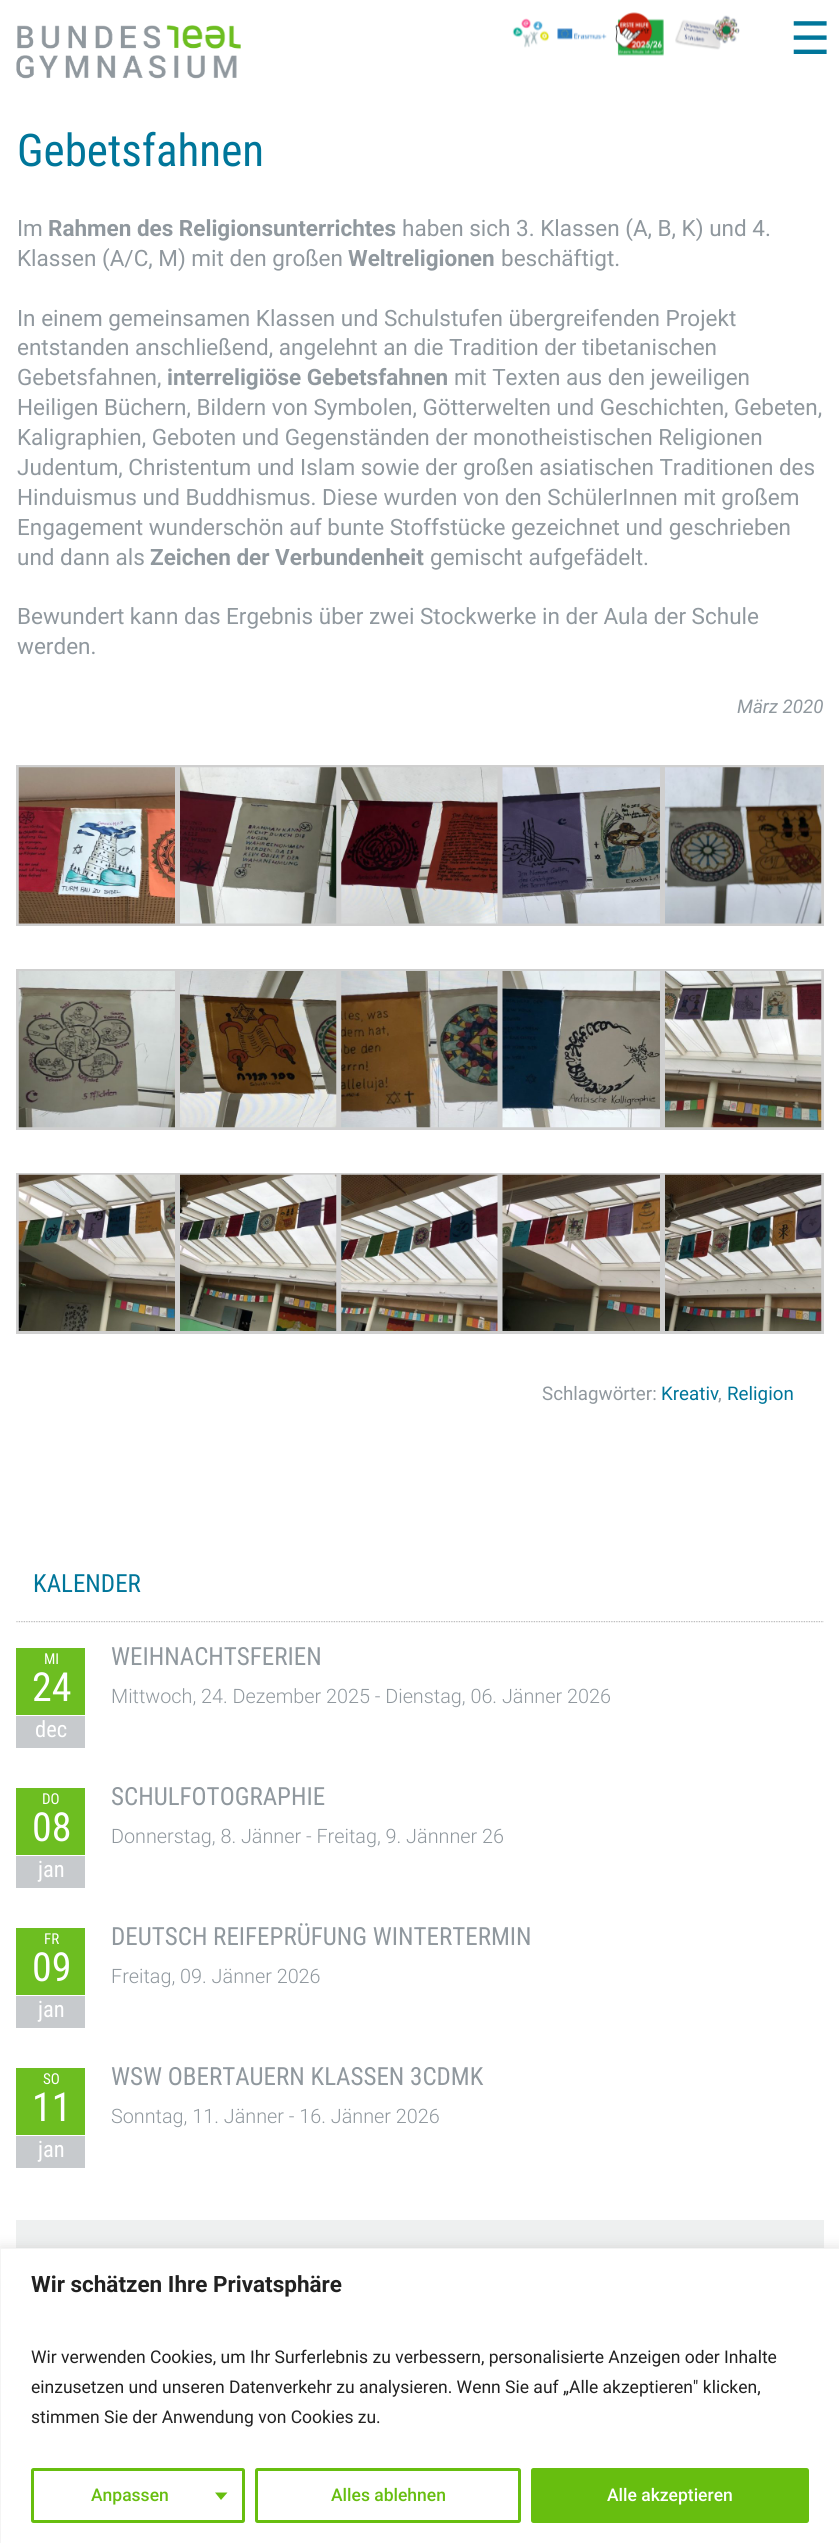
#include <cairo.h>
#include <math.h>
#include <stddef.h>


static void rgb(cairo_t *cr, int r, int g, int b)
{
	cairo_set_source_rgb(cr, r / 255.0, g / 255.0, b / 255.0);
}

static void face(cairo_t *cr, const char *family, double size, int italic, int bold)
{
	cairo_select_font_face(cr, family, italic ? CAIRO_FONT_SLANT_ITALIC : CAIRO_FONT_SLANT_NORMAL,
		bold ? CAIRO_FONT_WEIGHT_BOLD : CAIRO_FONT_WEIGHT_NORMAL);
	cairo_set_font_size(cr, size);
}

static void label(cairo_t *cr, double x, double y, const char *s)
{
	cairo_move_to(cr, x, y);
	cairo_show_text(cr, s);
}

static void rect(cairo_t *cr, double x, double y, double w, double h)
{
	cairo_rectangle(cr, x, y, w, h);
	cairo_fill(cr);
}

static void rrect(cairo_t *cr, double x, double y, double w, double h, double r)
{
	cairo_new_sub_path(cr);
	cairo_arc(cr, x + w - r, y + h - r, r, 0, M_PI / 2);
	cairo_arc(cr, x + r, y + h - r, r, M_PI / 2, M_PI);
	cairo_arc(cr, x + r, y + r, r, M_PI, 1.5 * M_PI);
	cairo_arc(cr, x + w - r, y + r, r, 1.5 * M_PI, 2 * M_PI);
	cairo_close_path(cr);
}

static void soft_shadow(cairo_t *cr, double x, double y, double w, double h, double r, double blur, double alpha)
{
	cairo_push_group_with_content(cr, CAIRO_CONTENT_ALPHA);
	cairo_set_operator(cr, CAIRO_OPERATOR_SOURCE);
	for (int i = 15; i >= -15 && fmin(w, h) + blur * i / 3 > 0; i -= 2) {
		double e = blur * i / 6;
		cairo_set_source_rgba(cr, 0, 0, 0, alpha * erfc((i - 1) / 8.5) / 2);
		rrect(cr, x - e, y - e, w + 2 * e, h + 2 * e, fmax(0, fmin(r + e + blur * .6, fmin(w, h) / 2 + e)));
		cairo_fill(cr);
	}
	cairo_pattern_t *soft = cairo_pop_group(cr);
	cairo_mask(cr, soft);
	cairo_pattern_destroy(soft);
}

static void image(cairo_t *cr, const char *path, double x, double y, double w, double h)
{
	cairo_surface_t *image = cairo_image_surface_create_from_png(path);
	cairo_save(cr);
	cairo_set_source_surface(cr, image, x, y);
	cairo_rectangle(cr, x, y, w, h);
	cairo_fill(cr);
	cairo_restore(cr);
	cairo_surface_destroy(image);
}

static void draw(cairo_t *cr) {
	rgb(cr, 255, 255, 255);
	cairo_paint(cr);
	image(cr, "image0.png", 16, 25, 225, 54);
	image(cr, "image1.png", 512, 18, 38, 30);
	image(cr, "image2.png", 557, 28, 50, 12);
	image(cr, "image3.png", 615, 12, 49, 44);
	image(cr, "image4.png", 675, 15, 65, 35);
	face(cr, "DejaVu Sans", 45, 0, 0);
	rgb(cr, 0, 118, 154);
	label(cr, 790, 54, "☰");
	face(cr, "Roboto Condensed", 45, 0, 0);
	label(cr, 17, 166, "Gebetsfahnen");
	face(cr, "Roboto", 22.5, 0, 0);
	rgb(cr, 144, 152, 158);
	label(cr, 17, 236, "Im");
	face(cr, "Roboto", 22.5, 0, 1);
	label(cr, 48, 236, "Rahmen des Religionsunterrichtes");
	face(cr, "Roboto", 22.5, 0, 0);
	label(cr, 402, 236, "haben sich 3. Klassen (A, B, K) und 4.");
	label(cr, 17, 266, "Klassen (A/C, M) mit den großen");
	face(cr, "Roboto", 22.5, 0, 1);
	label(cr, 348, 266, "Weltreligionen");
	face(cr, "Roboto", 22.5, 0, 0);
	label(cr, 501, 266, "beschäftigt.");
	label(cr, 17, 326, "In einem gemeinsamen Klassen und Schulstufen übergreifenden Projekt");
	label(cr, 17, 355, "entstanden anschließend, angelehnt an die Tradition der tibetanischen");
	label(cr, 17, 385, "Gebetsfahnen,");
	face(cr, "Roboto", 22.5, 0, 1);
	label(cr, 167, 385, "interreligiöse Gebetsfahnen");
	face(cr, "Roboto", 22.5, 0, 0);
	label(cr, 454, 385, "mit Texten aus den jeweiligen");
	label(cr, 17, 415, "Heiligen Büchern, Bildern von Symbolen, Götterwelten und Geschichten, Gebeten,");
	label(cr, 17, 445, "Kaligraphien, Geboten und Gegenständen der monotheistischen Religionen");
	label(cr, 17, 475, "Judentum, Christentum und Islam sowie der großen asiatischen Traditionen des");
	label(cr, 17, 505, "Hinduismus und Buddhismus. Diese wurden von den SchülerInnen mit großem");
	label(cr, 17, 535, "Engagement wunderschön auf bunte Stoffstücke gezeichnet und geschrieben");
	label(cr, 17, 565, "und dann als");
	face(cr, "Roboto", 22.5, 0, 1);
	label(cr, 150, 565, "Zeichen der Verbundenheit");
	face(cr, "Roboto", 22.5, 0, 0);
	label(cr, 430, 565, "gemischt aufgefädelt.");
	label(cr, 17, 624, "Bewundert kann das Ergebnis über zwei Stockwerke in der Aula der Schule");
	label(cr, 17, 654, "werden.");
	face(cr, "Roboto", 18.75, 1, 0);
	label(cr, 737, 713, "März 2020");
	cairo_rectangle(cr, 17.5, 766.5, 159, 158);
	rgb(cr, 207, 207, 207);
	cairo_set_line_width(cr, 3);
	cairo_stroke(cr);
	image(cr, "image5.png", 18, 767, 157, 157);
	cairo_rectangle(cr, 179.5, 766.5, 158, 158);
	cairo_stroke(cr);
	image(cr, "image6.png", 180, 767, 157, 157);
	cairo_rectangle(cr, 340.5, 766.5, 158, 158);
	cairo_stroke(cr);
	image(cr, "image7.png", 341, 767, 157, 157);
	cairo_rectangle(cr, 501.5, 766.5, 160, 158);
	cairo_stroke(cr);
	image(cr, "image8.png", 502, 767, 158, 157);
	cairo_rectangle(cr, 664.5, 766.5, 158, 158);
	cairo_stroke(cr);
	image(cr, "image9.png", 665, 767, 157, 157);
	cairo_rectangle(cr, 17.5, 970.5, 159, 158);
	cairo_stroke(cr);
	image(cr, "image10.png", 18, 971, 157, 157);
	cairo_rectangle(cr, 179.5, 970.5, 158, 158);
	cairo_stroke(cr);
	image(cr, "image11.png", 180, 971, 157, 157);
	cairo_rectangle(cr, 340.5, 970.5, 158, 158);
	cairo_stroke(cr);
	image(cr, "image12.png", 341, 971, 157, 157);
	cairo_rectangle(cr, 501.5, 970.5, 160, 158);
	cairo_stroke(cr);
	image(cr, "image13.png", 502, 971, 158, 157);
	cairo_rectangle(cr, 664.5, 970.5, 158, 158);
	cairo_stroke(cr);
	image(cr, "image14.png", 665, 971, 157, 157);
	cairo_rectangle(cr, 17.5, 1174.5, 159, 158);
	cairo_stroke(cr);
	image(cr, "image15.png", 18, 1174, 157, 157);
	cairo_rectangle(cr, 179.5, 1174.5, 158, 158);
	cairo_stroke(cr);
	image(cr, "image16.png", 180, 1174, 157, 157);
	cairo_rectangle(cr, 340.5, 1174.5, 158, 158);
	cairo_stroke(cr);
	image(cr, "image17.png", 341, 1174, 157, 157);
	cairo_rectangle(cr, 501.5, 1174.5, 160, 158);
	cairo_stroke(cr);
	image(cr, "image18.png", 502, 1174, 158, 157);
	cairo_rectangle(cr, 664.5, 1174.5, 158, 158);
	cairo_stroke(cr);
	image(cr, "image19.png", 665, 1174, 157, 157);
	face(cr, "Roboto", 18.75, 0, 0);
	rgb(cr, 144, 152, 158);
	label(cr, 542, 1400, "Schlagwörter:");
	rgb(cr, 0, 118, 154);
	label(cr, 661, 1400, "Kreativ");
	rgb(cr, 144, 152, 158);
	label(cr, 718, 1400, ",");
	rgb(cr, 0, 118, 154);
	label(cr, 727, 1400, "Religion");
	image(cr, "image20.png", 16, 1621, 808, 2);
	face(cr, "Roboto Condensed", 25, 0, 0);
	label(cr, 33, 1592, "KALENDER");
	rgb(cr, 199, 202, 205);
	rect(cr, 16, 1716, 69, 32);
	rgb(cr, 109, 190, 33);
	rect(cr, 16, 1648, 69, 67);
	face(cr, "Roboto Condensed", 15, 0, 0);
	rgb(cr, 255, 255, 255);
	label(cr, 44, 1664, "MI");
	face(cr, "Roboto Condensed", 40, 0, 0);
	label(cr, 32, 1701, "24");
	face(cr, "Roboto Condensed", 22.5, 0, 0);
	label(cr, 35, 1737, "dec");
	face(cr, "Roboto Condensed", 25, 0, 0);
	rgb(cr, 144, 152, 158);
	label(cr, 111, 1665, "WEIHNACHTSFERIEN");
	face(cr, "Roboto Light", 19.8, 0, 0);
	label(cr, 111, 1703, "Mittwoch, 24. Dezember 2025 - Dienstag, 06. Jänner 2026");
	rgb(cr, 199, 202, 205);
	rect(cr, 16, 1856, 69, 32);
	rgb(cr, 109, 190, 33);
	rect(cr, 16, 1788, 69, 67);
	face(cr, "Roboto Condensed", 15, 0, 0);
	rgb(cr, 255, 255, 255);
	label(cr, 42, 1804, "DO");
	face(cr, "Roboto Condensed", 40, 0, 0);
	label(cr, 32, 1841, "08");
	face(cr, "Roboto Condensed", 22.5, 0, 0);
	label(cr, 38, 1877, "jan");
	face(cr, "Roboto Condensed", 25, 0, 0);
	rgb(cr, 144, 152, 158);
	label(cr, 111, 1805, "SCHULFOTOGRAPHIE");
	face(cr, "Roboto Light", 19.8, 0, 0);
	label(cr, 111, 1843, "Donnerstag, 8. Jänner - Freitag, 9. Jännner 26");
	rgb(cr, 199, 202, 205);
	rect(cr, 16, 1996, 69, 32);
	rgb(cr, 109, 190, 33);
	rect(cr, 16, 1928, 69, 67);
	face(cr, "Roboto Condensed", 15, 0, 0);
	rgb(cr, 255, 255, 255);
	label(cr, 44, 1944, "FR");
	face(cr, "Roboto Condensed", 40, 0, 0);
	label(cr, 32, 1981, "09");
	face(cr, "Roboto Condensed", 22.5, 0, 0);
	label(cr, 38, 2017, "jan");
	face(cr, "Roboto Condensed", 25, 0, 0);
	rgb(cr, 144, 152, 158);
	label(cr, 111, 1945, "DEUTSCH REIFEPRÜFUNG WINTERTERMIN");
	face(cr, "Roboto Light", 19.8, 0, 0);
	label(cr, 111, 1983, "Freitag, 09. Jänner 2026");
	rgb(cr, 199, 202, 205);
	rect(cr, 16, 2136, 69, 32);
	rgb(cr, 109, 190, 33);
	rect(cr, 16, 2068, 69, 67);
	face(cr, "Roboto Condensed", 15, 0, 0);
	rgb(cr, 255, 255, 255);
	label(cr, 43, 2084, "SO");
	face(cr, "Roboto Condensed", 40, 0, 0);
	label(cr, 32, 2121, "11");
	face(cr, "Roboto Condensed", 22.5, 0, 0);
	label(cr, 38, 2157, "jan");
	face(cr, "Roboto Condensed", 25, 0, 0);
	rgb(cr, 144, 152, 158);
	label(cr, 111, 2085, "WSW OBERTAUERN KLASSEN 3CDMK");
	face(cr, "Roboto Light", 19.8, 0, 0);
	label(cr, 111, 2123, "Sonntag, 11. Jänner - 16. Jänner 2026");
	rgb(cr, 238, 240, 240);
	rect(cr, 16, 2220, 808, 28);
	rgb(cr, 172, 171, 171);
	soft_shadow(cr, 0, 2246, 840, 297, 0, 6, 0.3);
	rgb(cr, 255, 255, 255);
	cairo_rectangle(cr, 0.5, 2248.5, 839, 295);
	cairo_fill_preserve(cr);
	rgb(cr, 244, 244, 244);
	cairo_set_line_width(cr, 1);
	cairo_stroke(cr);
	face(cr, "Roboto", 22.5, 0, 1);
	rgb(cr, 33, 33, 33);
	label(cr, 31, 2292, "Wir schätzen Ihre Privatsphäre");
	face(cr, "Roboto", 17.5, 0, 0);
	label(cr, 31, 2363, "Wir verwenden Cookies, um Ihr Surferlebnis zu verbessern, personalisierte Anzeigen oder Inhalte");
	label(cr, 31, 2393, "einzusetzen und unseren Datenverkehr zu analysieren. Wenn Sie auf „Alle akzeptieren\" klicken,");
	label(cr, 31, 2423, "stimmen Sie der Anwendung von Cookies zu.");
	rrect(cr, 32.5, 2469.5, 211, 52, 1);
	rgb(cr, 103, 190, 15);
	cairo_set_line_width(cr, 3);
	cairo_stroke(cr);
	face(cr, "Roboto Medium", 17.5, 0, 0);
	label(cr, 91, 2501, "Anpassen");
	cairo_new_path(cr);
	cairo_move_to(cr, 215, 2492.5);
	cairo_line_to(cr, 227.5, 2492.5);
	cairo_line_to(cr, 221, 2500);
	cairo_close_path(cr);
	cairo_fill(cr);
	rrect(cr, 256.5, 2469.5, 263, 52, 1);
	cairo_stroke(cr);
	label(cr, 331, 2501, "Alles ablehnen");
	rrect(cr, 532.5, 2469.5, 275, 52, 1);
	cairo_fill_preserve(cr);
	cairo_stroke(cr);
	rgb(cr, 255, 255, 255);
	label(cr, 607, 2501, "Alle akzeptieren");
}

int main(void) {
	cairo_surface_t *surface = cairo_image_surface_create(CAIRO_FORMAT_RGB24, 839, 2543);
	cairo_t *cr = cairo_create(surface);
	cairo_font_options_t *options = cairo_font_options_create();
	cairo_font_options_set_hint_metrics(options, CAIRO_HINT_METRICS_OFF);
	cairo_font_options_set_hint_style(options, CAIRO_HINT_STYLE_NONE);
	cairo_set_font_options(cr, options);
	cairo_set_miter_limit(cr, 4);
	draw(cr);
	cairo_surface_write_to_png(surface, "render.png");
	cairo_font_options_destroy(options);
	cairo_destroy(cr);
	cairo_surface_destroy(surface);
	return 0;
}
